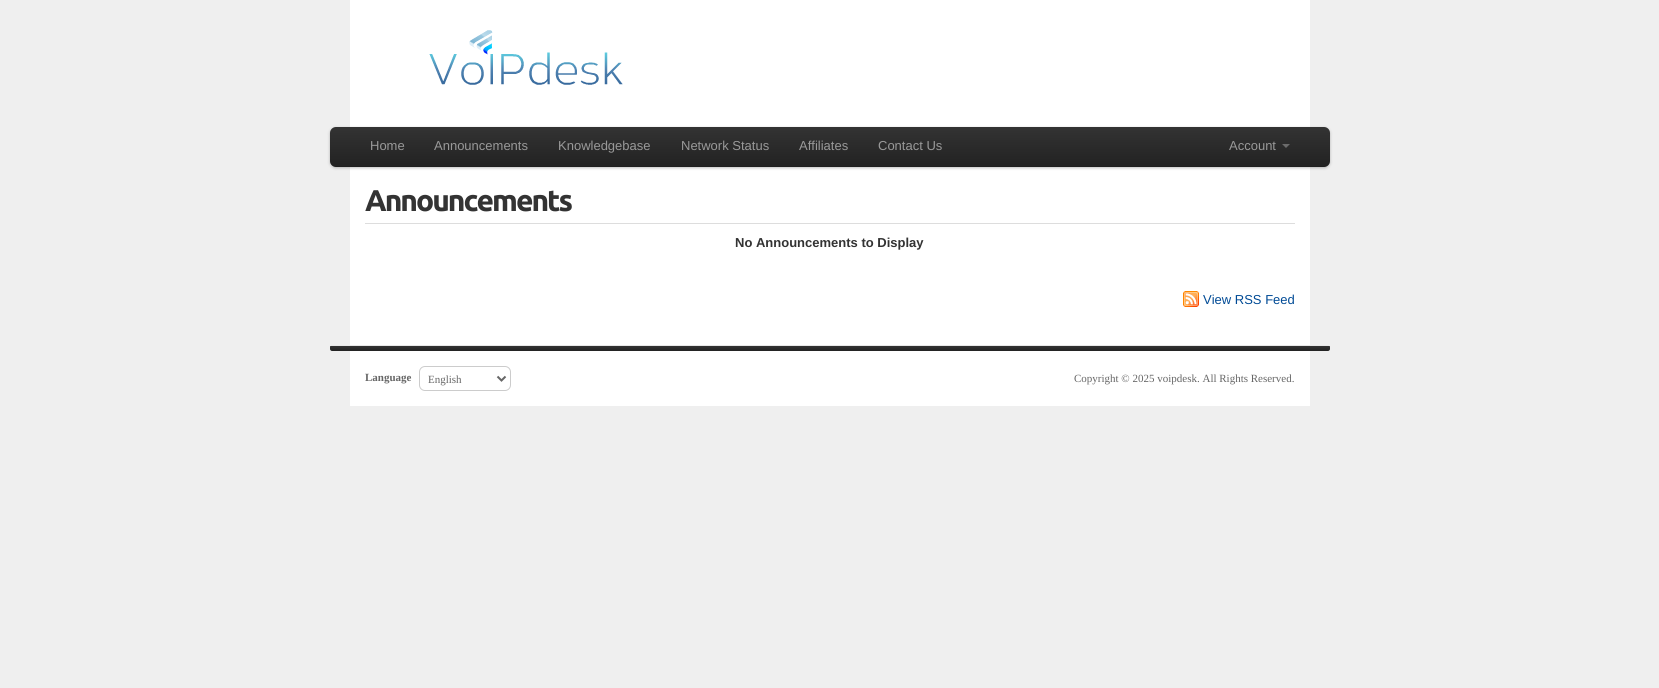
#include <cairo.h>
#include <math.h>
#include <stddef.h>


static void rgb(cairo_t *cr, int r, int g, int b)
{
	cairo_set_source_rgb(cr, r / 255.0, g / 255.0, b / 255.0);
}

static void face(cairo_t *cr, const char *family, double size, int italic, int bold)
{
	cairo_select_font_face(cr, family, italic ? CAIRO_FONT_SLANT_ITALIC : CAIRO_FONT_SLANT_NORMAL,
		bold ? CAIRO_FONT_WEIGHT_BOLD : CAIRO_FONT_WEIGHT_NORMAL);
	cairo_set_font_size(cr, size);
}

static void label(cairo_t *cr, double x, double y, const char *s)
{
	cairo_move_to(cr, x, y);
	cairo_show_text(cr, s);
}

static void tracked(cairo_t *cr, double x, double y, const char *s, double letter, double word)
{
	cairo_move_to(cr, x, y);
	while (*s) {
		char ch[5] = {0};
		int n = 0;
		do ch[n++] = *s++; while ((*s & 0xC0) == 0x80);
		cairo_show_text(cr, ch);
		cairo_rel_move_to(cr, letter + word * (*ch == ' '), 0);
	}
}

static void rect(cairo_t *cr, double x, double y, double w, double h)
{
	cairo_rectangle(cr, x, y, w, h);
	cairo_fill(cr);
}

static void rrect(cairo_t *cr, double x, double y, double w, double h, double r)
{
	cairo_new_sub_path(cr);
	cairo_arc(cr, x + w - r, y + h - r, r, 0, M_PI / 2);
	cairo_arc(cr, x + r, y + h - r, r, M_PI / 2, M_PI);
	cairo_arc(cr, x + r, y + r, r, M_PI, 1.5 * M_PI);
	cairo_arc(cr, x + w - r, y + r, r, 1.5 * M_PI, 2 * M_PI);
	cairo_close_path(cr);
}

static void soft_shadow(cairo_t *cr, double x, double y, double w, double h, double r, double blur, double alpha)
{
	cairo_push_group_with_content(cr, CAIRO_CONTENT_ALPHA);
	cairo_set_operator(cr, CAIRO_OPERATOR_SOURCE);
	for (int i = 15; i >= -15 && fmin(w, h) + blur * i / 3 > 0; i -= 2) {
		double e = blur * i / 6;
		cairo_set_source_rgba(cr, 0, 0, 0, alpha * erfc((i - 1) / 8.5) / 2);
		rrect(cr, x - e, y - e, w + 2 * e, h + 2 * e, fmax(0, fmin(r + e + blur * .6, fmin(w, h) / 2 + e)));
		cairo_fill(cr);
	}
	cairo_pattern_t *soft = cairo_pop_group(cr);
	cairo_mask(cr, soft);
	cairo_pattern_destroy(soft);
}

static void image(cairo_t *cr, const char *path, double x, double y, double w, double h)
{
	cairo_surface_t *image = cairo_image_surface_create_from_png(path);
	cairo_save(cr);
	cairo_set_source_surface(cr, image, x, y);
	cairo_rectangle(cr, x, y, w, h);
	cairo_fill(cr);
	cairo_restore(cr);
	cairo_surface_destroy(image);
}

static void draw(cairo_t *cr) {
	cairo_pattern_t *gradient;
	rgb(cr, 239, 239, 239);
	cairo_paint(cr);
	rgb(cr, 255, 255, 255);
	rect(cr, 350, 0, 960, 127);
	image(cr, "image0.png", 429, 30, 194, 55);
	rect(cr, 350, 167, 960, 178);
	rgb(cr, 0, 0, 0);
	soft_shadow(cr, 330, 128, 1000, 40, 6, 1.5, 0.25);
	gradient = cairo_pattern_create_linear(830, 127, 830, 167);
	cairo_pattern_add_color_stop_rgba(gradient, 0, 0.2, 0.2, 0.2, 1);
	cairo_pattern_add_color_stop_rgba(gradient, 1, 0.133, 0.133, 0.133, 1);
	cairo_set_source(cr, gradient);
	cairo_pattern_destroy(gradient);
	rrect(cr, 330, 127, 1000, 40, 6);
	cairo_fill(cr);
	cairo_set_source_rgba(cr, 0, 0, 0, 0.1);
	cairo_new_path(cr);
	cairo_move_to(cr, 330, 160);
	cairo_line_to(cr, 330, 161);
	cairo_curve_to(cr, 330, 164, 333, 167, 336, 167);
	cairo_line_to(cr, 1324, 167);
	cairo_curve_to(cr, 1327, 167, 1330, 164, 1330, 161);
	cairo_line_to(cr, 1330, 160);
	cairo_curve_to(cr, 1330, 163, 1327, 166, 1324, 166);
	cairo_line_to(cr, 336, 166);
	cairo_curve_to(cr, 333, 166, 330, 163, 330, 160);
	cairo_close_path(cr);
	cairo_fill(cr);
	face(cr, "Liberation Sans", 13, 0, 0);
	rgb(cr, 153, 153, 153);
	label(cr, 370, 150, "Home");
	label(cr, 434, 150, "Announcements");
	label(cr, 558, 150, "Knowledgebase");
	label(cr, 681, 150, "Network Status");
	label(cr, 799, 150, "Affiliates");
	label(cr, 878, 150, "Contact Us");
	label(cr, 1229, 150, "Account");
	rgb(cr, 107, 107, 107);
	cairo_new_path(cr);
	cairo_move_to(cr, 1282, 144);
	cairo_line_to(cr, 1290, 144);
	cairo_line_to(cr, 1286, 148);
	cairo_close_path(cr);
	cairo_fill(cr);
	rgb(cr, 221, 221, 221);
	rect(cr, 365, 223, 930, 1);
	face(cr, "Ubuntu", 30, 0, 1);
	rgb(cr, 51, 51, 51);
	tracked(cr, 365, 211, "Announcements", -2, 0);
	face(cr, "Liberation Sans", 13, 0, 1);
	label(cr, 735, 247, "No Announcements to Display");
	image(cr, "image1.png", 1183, 291, 16, 16);
	face(cr, "Liberation Sans", 13, 0, 0);
	rgb(cr, 0, 74, 149);
	label(cr, 1203, 304, "View RSS Feed");
	cairo_save(cr);
	rrect(cr, 330, 345, 1000, 6, 2);
	cairo_clip(cr);
	gradient = cairo_pattern_create_linear(830, 346, 830, 351);
	cairo_pattern_add_color_stop_rgba(gradient, 0, 0.2, 0.2, 0.2, 1);
	cairo_pattern_add_color_stop_rgba(gradient, 1, 0.133, 0.133, 0.133, 1);
	cairo_set_source(cr, gradient);
	cairo_pattern_destroy(gradient);
	cairo_new_path(cr);
	cairo_move_to(cr, 330, 346);
	cairo_line_to(cr, 1330, 346);
	cairo_line_to(cr, 1330, 349);
	cairo_curve_to(cr, 1330, 350, 1329, 351, 1328, 351);
	cairo_line_to(cr, 332, 351);
	cairo_curve_to(cr, 331, 351, 330, 350, 330, 349);
	cairo_close_path(cr);
	cairo_fill(cr);
	cairo_restore(cr);
	rgb(cr, 232, 232, 232);
	rect(cr, 331, 345, 998, 1);
	rgb(cr, 255, 255, 255);
	rect(cr, 350, 351, 960, 55);
	face(cr, "Liberation Serif", 11, 0, 1);
	rgb(cr, 102, 102, 102);
	label(cr, 365, 381, "Language");
	rrect(cr, 419.5, 366.5, 91, 24, 5.5);
	rgb(cr, 204, 204, 204);
	cairo_set_line_width(cr, 1);
	cairo_stroke(cr);
	cairo_new_path(cr);
	cairo_move_to(cr, 497.5, 376.5);
	cairo_line_to(cr, 501.5, 380.5);
	cairo_line_to(cr, 505.5, 376.5);
	rgb(cr, 102, 102, 102);
	cairo_set_line_width(cr, 2);
	cairo_stroke(cr);
	face(cr, "Liberation Serif", 11, 0, 0);
	label(cr, 428, 383, "English");
	label(cr, 1074, 382, "Copyright © 2025 voipdesk. All Rights Reserved.");
}

int main(void) {
	cairo_surface_t *surface = cairo_image_surface_create(CAIRO_FORMAT_RGB24, 1659, 688);
	cairo_t *cr = cairo_create(surface);
	cairo_font_options_t *options = cairo_font_options_create();
	cairo_font_options_set_hint_metrics(options, CAIRO_HINT_METRICS_OFF);
	cairo_font_options_set_hint_style(options, CAIRO_HINT_STYLE_NONE);
	cairo_set_font_options(cr, options);
	cairo_set_miter_limit(cr, 4);
	draw(cr);
	cairo_surface_write_to_png(surface, "render.png");
	cairo_font_options_destroy(options);
	cairo_destroy(cr);
	cairo_surface_destroy(surface);
	return 0;
}
